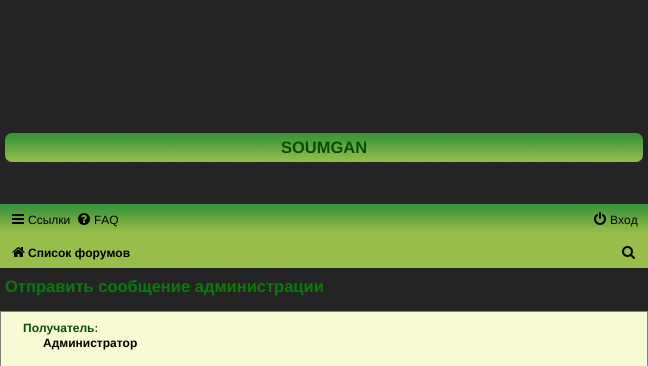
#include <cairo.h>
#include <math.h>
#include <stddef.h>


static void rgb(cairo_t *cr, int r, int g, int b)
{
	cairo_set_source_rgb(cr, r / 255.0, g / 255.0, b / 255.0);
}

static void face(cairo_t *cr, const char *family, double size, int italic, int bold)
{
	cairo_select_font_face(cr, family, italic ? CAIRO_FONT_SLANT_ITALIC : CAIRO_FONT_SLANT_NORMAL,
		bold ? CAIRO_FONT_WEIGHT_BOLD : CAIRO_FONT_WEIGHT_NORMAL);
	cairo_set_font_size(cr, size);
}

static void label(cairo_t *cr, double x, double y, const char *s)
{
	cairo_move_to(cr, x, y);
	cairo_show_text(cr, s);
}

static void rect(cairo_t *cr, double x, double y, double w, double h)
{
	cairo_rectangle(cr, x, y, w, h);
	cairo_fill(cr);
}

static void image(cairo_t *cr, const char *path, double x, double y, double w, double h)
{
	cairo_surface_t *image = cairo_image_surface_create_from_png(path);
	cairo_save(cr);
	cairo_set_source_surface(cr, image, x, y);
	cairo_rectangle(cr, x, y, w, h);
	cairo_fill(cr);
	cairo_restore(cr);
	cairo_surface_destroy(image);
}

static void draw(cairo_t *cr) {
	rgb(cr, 36, 36, 36);
	cairo_paint(cr);
	image(cr, "image0.png", 5, 133, 638, 29);
	face(cr, "Liberation Sans", 16.5, 0, 1);
	rgb(cr, 6, 78, 6);
	label(cr, 281, 153, "SOUMGAN");
	rgb(cr, 152, 189, 74);
	rect(cr, 0, 232, 648, 36);
	image(cr, "image1.png", 0, 204, 648, 28);
	image(cr, "image2.png", 12, 214, 12, 10);
	face(cr, "Liberation Sans", 12, 0, 0);
	rgb(cr, 0, 0, 0);
	label(cr, 28, 224, "Ссылки");
	image(cr, "image3.png", 78, 213, 12, 12);
	label(cr, 94, 224, "FAQ");
	image(cr, "image4.png", 594, 212, 12, 13);
	label(cr, 610, 224, "Вход");
	image(cr, "image5.png", 12, 247, 13, 10);
	face(cr, "Liberation Sans", 12, 0, 1);
	label(cr, 28, 257, "Список форумов");
	image(cr, "image6.png", 622, 246, 13, 13);
	face(cr, "Liberation Sans", 16.5, 0, 1);
	rgb(cr, 9, 123, 9);
	label(cr, 5, 292, "Отправить сообщение администрации");
	rgb(cr, 247, 250, 210);
	cairo_rectangle(cr, 0.5, 311.5, 647, 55);
	cairo_fill_preserve(cr);
	rgb(cr, 128, 128, 128);
	cairo_set_line_width(cr, 1);
	cairo_stroke(cr);
	face(cr, "Liberation Sans", 12, 0, 1);
	rgb(cr, 6, 78, 6);
	label(cr, 23, 332, "Получатель:");
	rgb(cr, 0, 0, 0);
	label(cr, 43, 347, "Администратор");
}

int main(void) {
	cairo_surface_t *surface = cairo_image_surface_create(CAIRO_FORMAT_RGB24, 648, 366);
	cairo_t *cr = cairo_create(surface);
	cairo_font_options_t *options = cairo_font_options_create();
	cairo_font_options_set_hint_metrics(options, CAIRO_HINT_METRICS_OFF);
	cairo_font_options_set_hint_style(options, CAIRO_HINT_STYLE_NONE);
	cairo_set_font_options(cr, options);
	cairo_set_miter_limit(cr, 4);
	draw(cr);
	cairo_surface_write_to_png(surface, "render.png");
	cairo_font_options_destroy(options);
	cairo_destroy(cr);
	cairo_surface_destroy(surface);
	return 0;
}
